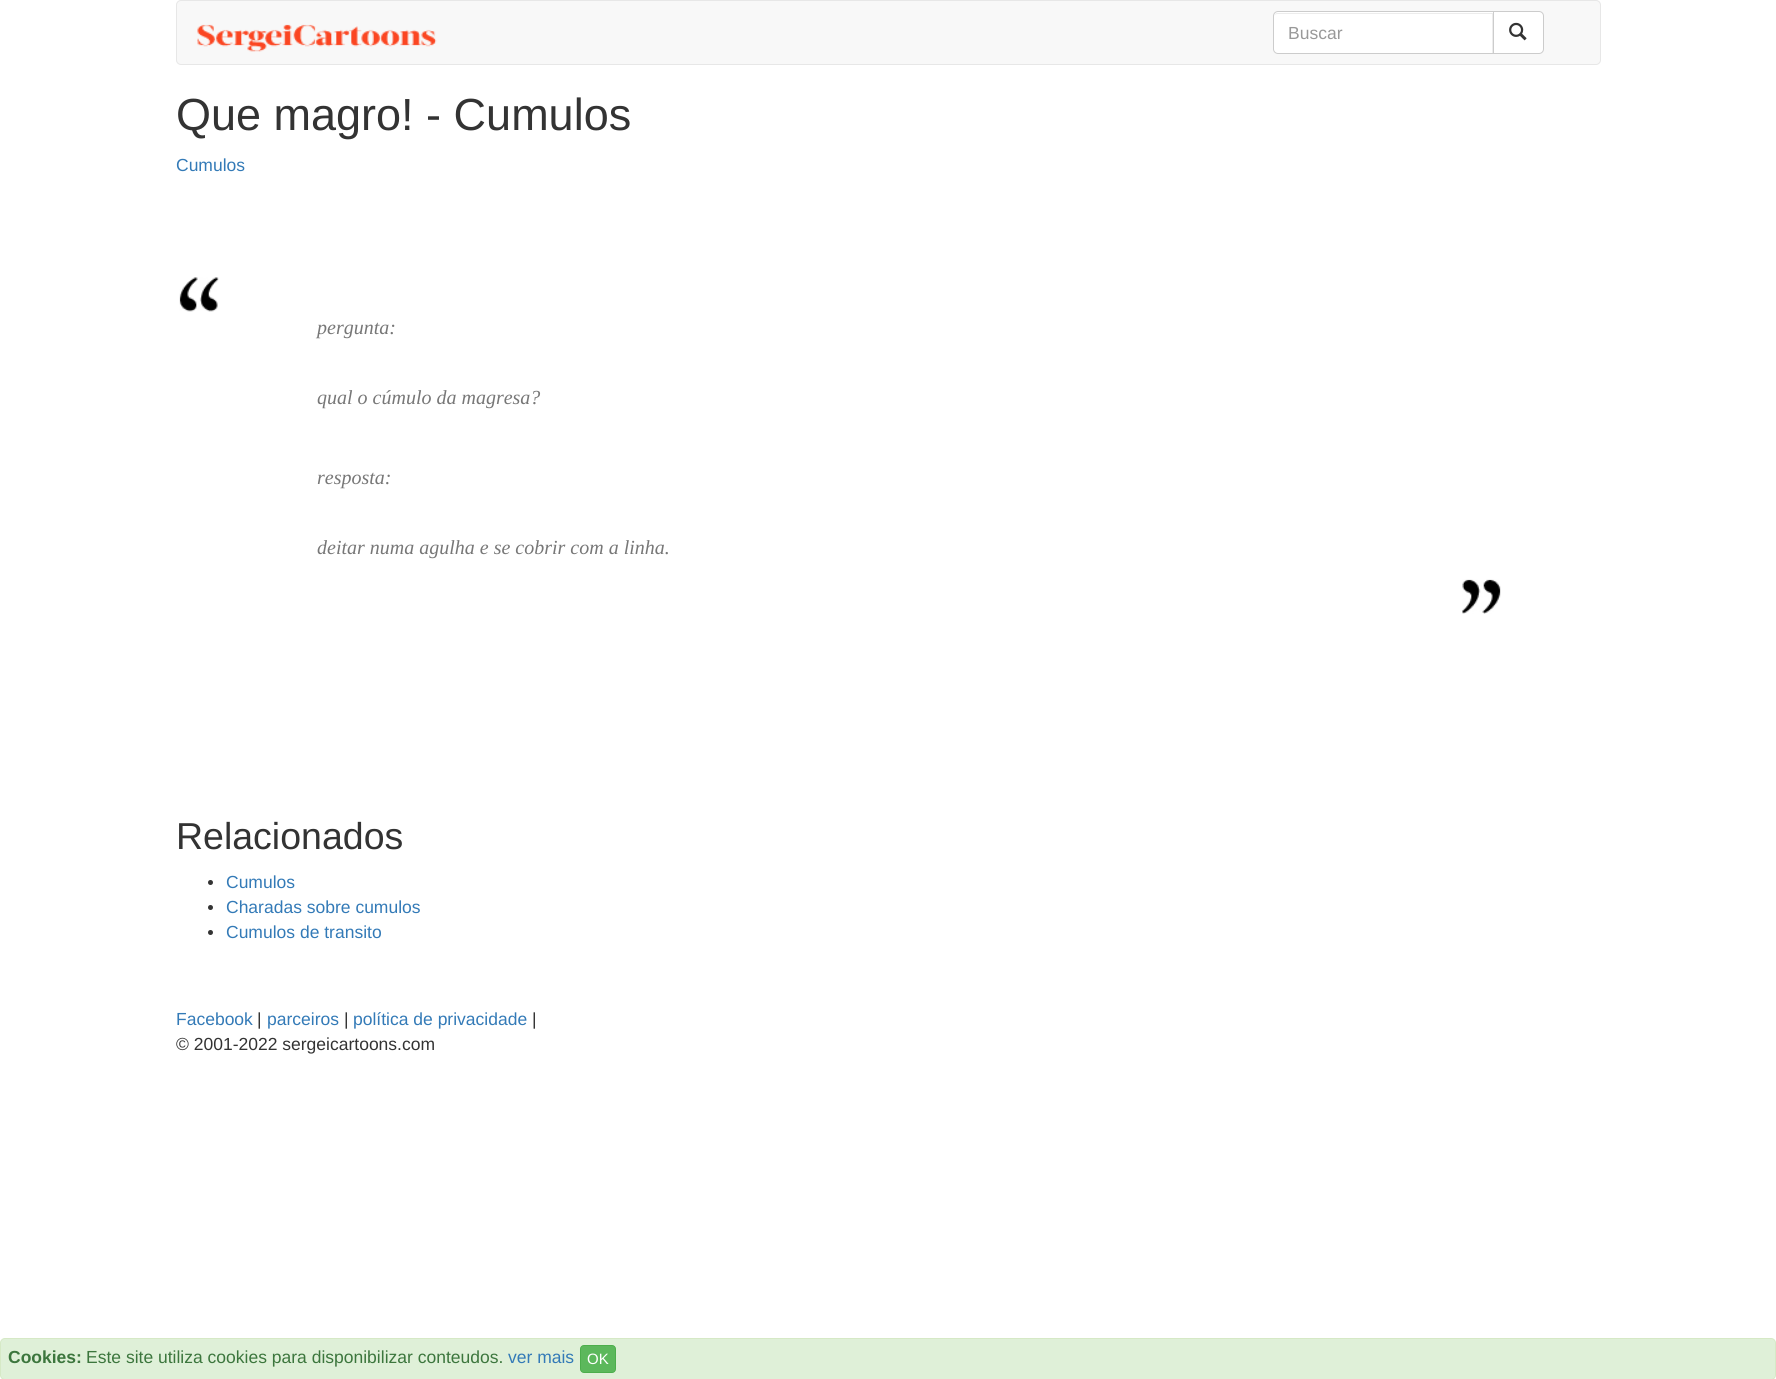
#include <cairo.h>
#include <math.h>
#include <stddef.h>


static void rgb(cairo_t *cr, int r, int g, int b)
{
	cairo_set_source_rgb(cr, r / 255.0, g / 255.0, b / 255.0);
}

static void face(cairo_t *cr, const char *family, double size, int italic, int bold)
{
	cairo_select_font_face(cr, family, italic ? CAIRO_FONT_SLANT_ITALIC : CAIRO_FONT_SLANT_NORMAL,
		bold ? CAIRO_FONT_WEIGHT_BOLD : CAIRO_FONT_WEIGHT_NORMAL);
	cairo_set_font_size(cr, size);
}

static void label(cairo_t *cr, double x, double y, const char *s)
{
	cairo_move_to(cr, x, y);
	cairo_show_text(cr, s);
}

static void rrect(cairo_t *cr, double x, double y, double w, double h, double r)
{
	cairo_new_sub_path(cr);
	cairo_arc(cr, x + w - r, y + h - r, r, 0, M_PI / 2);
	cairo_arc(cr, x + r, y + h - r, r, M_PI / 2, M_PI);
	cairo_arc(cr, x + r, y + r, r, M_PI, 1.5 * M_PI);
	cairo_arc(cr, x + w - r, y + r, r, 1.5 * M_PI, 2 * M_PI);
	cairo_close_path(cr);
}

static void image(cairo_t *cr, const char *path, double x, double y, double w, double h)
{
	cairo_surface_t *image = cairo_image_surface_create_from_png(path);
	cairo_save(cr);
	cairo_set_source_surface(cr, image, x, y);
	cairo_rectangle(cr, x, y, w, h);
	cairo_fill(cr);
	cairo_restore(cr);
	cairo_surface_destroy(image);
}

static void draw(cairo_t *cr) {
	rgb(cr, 255, 255, 255);
	cairo_paint(cr);
	rgb(cr, 248, 248, 248);
	rrect(cr, 176.5, 0.5, 1424, 64, 4.5);
	cairo_fill_preserve(cr);
	rgb(cr, 231, 231, 231);
	cairo_set_line_width(cr, 1);
	cairo_stroke(cr);
	image(cr, "image0.png", 197, 24, 240, 28);
	rgb(cr, 255, 255, 255);
	cairo_new_path(cr);
	cairo_move_to(cr, 1493.5, 11.5);
	cairo_line_to(cr, 1539, 11.5);
	cairo_curve_to(cr, 1541.5, 11.5, 1543.5, 13.5, 1543.5, 16);
	cairo_line_to(cr, 1543.5, 49);
	cairo_curve_to(cr, 1543.5, 51.5, 1541.5, 53.5, 1539, 53.5);
	cairo_line_to(cr, 1493.5, 53.5);
	cairo_close_path(cr);
	cairo_fill_preserve(cr);
	rgb(cr, 204, 204, 204);
	cairo_stroke(cr);
	rgb(cr, 255, 255, 255);
	cairo_new_path(cr);
	cairo_move_to(cr, 1278, 11);
	cairo_line_to(cr, 1494, 11);
	cairo_line_to(cr, 1494, 54);
	cairo_line_to(cr, 1278, 54);
	cairo_curve_to(cr, 1275, 54, 1273, 52, 1273, 49);
	cairo_line_to(cr, 1273, 16);
	cairo_curve_to(cr, 1273, 13, 1275, 11, 1278, 11);
	cairo_close_path(cr);
	cairo_fill(cr);
	rgb(cr, 236, 236, 236);
	cairo_new_path(cr);
	cairo_move_to(cr, 1278, 14);
	cairo_line_to(cr, 1492, 14);
	cairo_line_to(cr, 1492, 53);
	cairo_line_to(cr, 1493, 53);
	cairo_line_to(cr, 1493, 13);
	cairo_line_to(cr, 1278, 13);
	cairo_curve_to(cr, 1275, 13, 1274, 15, 1274, 18);
	cairo_curve_to(cr, 1274, 15, 1275, 14, 1278, 14);
	cairo_close_path(cr);
	cairo_fill(cr);
	cairo_new_path(cr);
	cairo_move_to(cr, 1278, 11.5);
	cairo_line_to(cr, 1493.5, 11.5);
	cairo_line_to(cr, 1493.5, 53.5);
	cairo_line_to(cr, 1278, 53.5);
	cairo_curve_to(cr, 1275.5, 53.5, 1273.5, 51.5, 1273.5, 49);
	cairo_line_to(cr, 1273.5, 16);
	cairo_curve_to(cr, 1273.5, 13.5, 1275.5, 11.5, 1278, 11.5);
	cairo_close_path(cr);
	rgb(cr, 204, 204, 204);
	cairo_stroke(cr);
	face(cr, "Liberation Sans", 17.5, 0, 0);
	rgb(cr, 153, 153, 153);
	label(cr, 1288, 39, "Buscar");
	image(cr, "image1.png", 1509, 22, 18, 19);
	face(cr, "Liberation Sans", 45, 0, 0);
	rgb(cr, 51, 51, 51);
	label(cr, 176, 130, "Que magro! - Cumulos");
	face(cr, "Liberation Sans", 17.5, 0, 0);
	rgb(cr, 51, 122, 183);
	label(cr, 176, 171, "Cumulos");
	image(cr, "image2.png", 179, 277, 40, 35);
	face(cr, "Liberation Serif", 20, 1, 0);
	rgb(cr, 119, 119, 119);
	label(cr, 317, 334, "pergunta:");
	label(cr, 317, 404, "qual o cúmulo da magresa?");
	label(cr, 317, 484, "resposta:");
	label(cr, 317, 554, "deitar numa agulha e se cobrir com a linha.");
	image(cr, "image3.png", 1462, 579, 39, 35);
	face(cr, "Liberation Sans", 37.5, 0, 0);
	rgb(cr, 51, 51, 51);
	label(cr, 176, 849, "Relacionados");
	cairo_new_path(cr);
	cairo_arc(cr, 210.5, 882.5, 2.5, 0, 2 * M_PI);
	cairo_fill(cr);
	face(cr, "Liberation Sans", 17.5, 0, 0);
	rgb(cr, 51, 122, 183);
	label(cr, 226, 888, "Cumulos");
	rgb(cr, 51, 51, 51);
	cairo_new_path(cr);
	cairo_arc(cr, 210.5, 907.5, 2.5, 0, 2 * M_PI);
	cairo_fill(cr);
	rgb(cr, 51, 122, 183);
	label(cr, 226, 913, "Charadas sobre cumulos");
	rgb(cr, 51, 51, 51);
	cairo_new_path(cr);
	cairo_arc(cr, 210.5, 932.5, 2.5, 0, 2 * M_PI);
	cairo_fill(cr);
	rgb(cr, 51, 122, 183);
	label(cr, 226, 938, "Cumulos de transito");
	label(cr, 176, 1025, "Facebook");
	rgb(cr, 51, 51, 51);
	label(cr, 257, 1025, "|");
	rgb(cr, 51, 122, 183);
	label(cr, 267, 1025, "parceiros");
	rgb(cr, 51, 51, 51);
	label(cr, 344, 1025, "|");
	rgb(cr, 51, 122, 183);
	label(cr, 353, 1025, "política de privacidade");
	rgb(cr, 51, 51, 51);
	label(cr, 532, 1025, "|");
	label(cr, 176, 1050, "© 2001-2022 sergeicartoons.com");
	rgb(cr, 223, 240, 216);
	rrect(cr, 0.5, 1338.5, 1775, 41, 4.5);
	cairo_fill_preserve(cr);
	rgb(cr, 214, 233, 198);
	cairo_stroke(cr);
	face(cr, "Liberation Sans", 17.5, 0, 1);
	rgb(cr, 60, 118, 61);
	label(cr, 8, 1363, "Cookies:");
	face(cr, "Liberation Sans", 17.5, 0, 0);
	label(cr, 86, 1363, "Este site utiliza cookies para disponibilizar conteudos.");
	rgb(cr, 51, 122, 183);
	label(cr, 508, 1363, "ver mais");
	rgb(cr, 92, 184, 92);
	rrect(cr, 580.5, 1345.5, 35, 27, 3.5);
	cairo_fill_preserve(cr);
	rgb(cr, 76, 174, 76);
	cairo_stroke(cr);
	face(cr, "Liberation Sans", 15, 0, 0);
	rgb(cr, 255, 255, 255);
	label(cr, 587, 1364, "OK");
}

int main(void) {
	cairo_surface_t *surface = cairo_image_surface_create(CAIRO_FORMAT_RGB24, 1776, 1379);
	cairo_t *cr = cairo_create(surface);
	cairo_font_options_t *options = cairo_font_options_create();
	cairo_font_options_set_hint_metrics(options, CAIRO_HINT_METRICS_OFF);
	cairo_font_options_set_hint_style(options, CAIRO_HINT_STYLE_NONE);
	cairo_set_font_options(cr, options);
	cairo_set_miter_limit(cr, 4);
	draw(cr);
	cairo_surface_write_to_png(surface, "render.png");
	cairo_font_options_destroy(options);
	cairo_destroy(cr);
	cairo_surface_destroy(surface);
	return 0;
}
